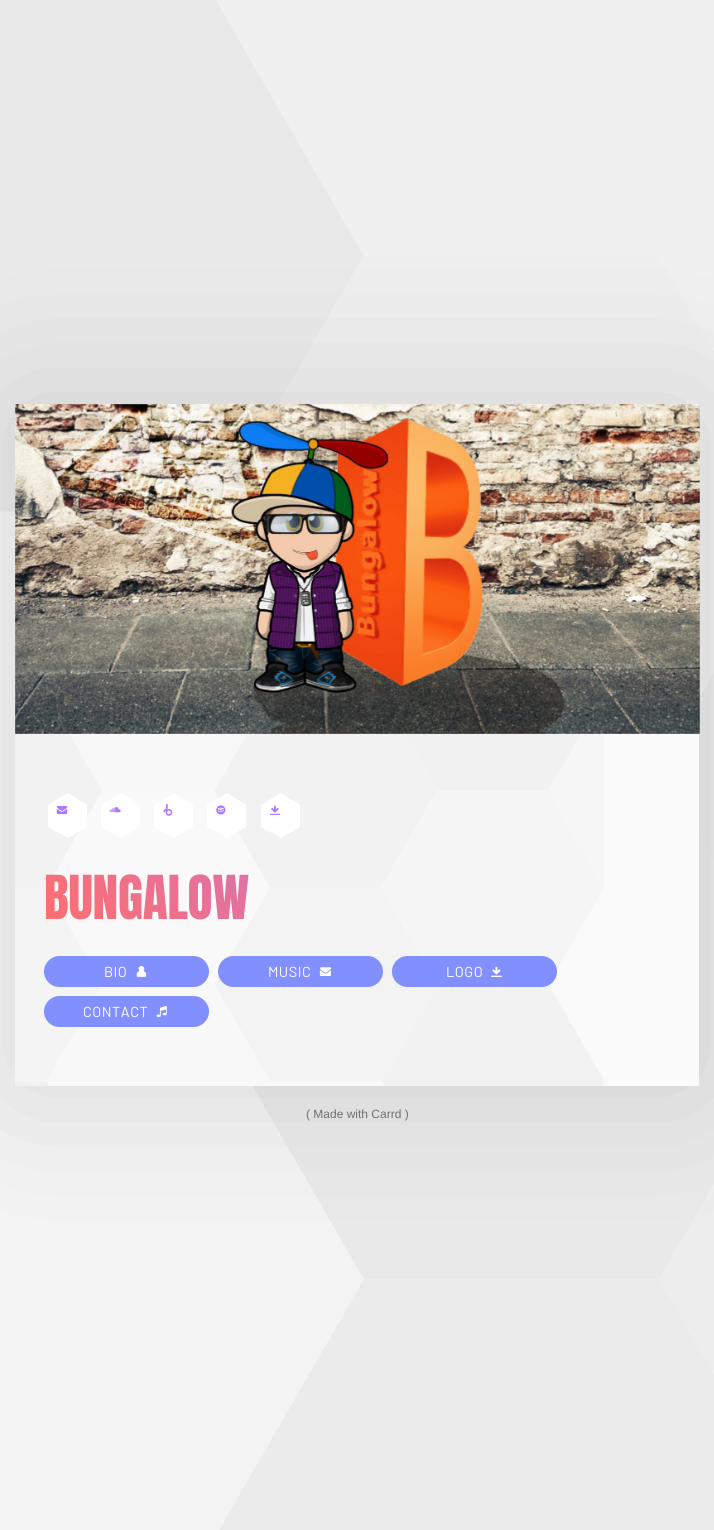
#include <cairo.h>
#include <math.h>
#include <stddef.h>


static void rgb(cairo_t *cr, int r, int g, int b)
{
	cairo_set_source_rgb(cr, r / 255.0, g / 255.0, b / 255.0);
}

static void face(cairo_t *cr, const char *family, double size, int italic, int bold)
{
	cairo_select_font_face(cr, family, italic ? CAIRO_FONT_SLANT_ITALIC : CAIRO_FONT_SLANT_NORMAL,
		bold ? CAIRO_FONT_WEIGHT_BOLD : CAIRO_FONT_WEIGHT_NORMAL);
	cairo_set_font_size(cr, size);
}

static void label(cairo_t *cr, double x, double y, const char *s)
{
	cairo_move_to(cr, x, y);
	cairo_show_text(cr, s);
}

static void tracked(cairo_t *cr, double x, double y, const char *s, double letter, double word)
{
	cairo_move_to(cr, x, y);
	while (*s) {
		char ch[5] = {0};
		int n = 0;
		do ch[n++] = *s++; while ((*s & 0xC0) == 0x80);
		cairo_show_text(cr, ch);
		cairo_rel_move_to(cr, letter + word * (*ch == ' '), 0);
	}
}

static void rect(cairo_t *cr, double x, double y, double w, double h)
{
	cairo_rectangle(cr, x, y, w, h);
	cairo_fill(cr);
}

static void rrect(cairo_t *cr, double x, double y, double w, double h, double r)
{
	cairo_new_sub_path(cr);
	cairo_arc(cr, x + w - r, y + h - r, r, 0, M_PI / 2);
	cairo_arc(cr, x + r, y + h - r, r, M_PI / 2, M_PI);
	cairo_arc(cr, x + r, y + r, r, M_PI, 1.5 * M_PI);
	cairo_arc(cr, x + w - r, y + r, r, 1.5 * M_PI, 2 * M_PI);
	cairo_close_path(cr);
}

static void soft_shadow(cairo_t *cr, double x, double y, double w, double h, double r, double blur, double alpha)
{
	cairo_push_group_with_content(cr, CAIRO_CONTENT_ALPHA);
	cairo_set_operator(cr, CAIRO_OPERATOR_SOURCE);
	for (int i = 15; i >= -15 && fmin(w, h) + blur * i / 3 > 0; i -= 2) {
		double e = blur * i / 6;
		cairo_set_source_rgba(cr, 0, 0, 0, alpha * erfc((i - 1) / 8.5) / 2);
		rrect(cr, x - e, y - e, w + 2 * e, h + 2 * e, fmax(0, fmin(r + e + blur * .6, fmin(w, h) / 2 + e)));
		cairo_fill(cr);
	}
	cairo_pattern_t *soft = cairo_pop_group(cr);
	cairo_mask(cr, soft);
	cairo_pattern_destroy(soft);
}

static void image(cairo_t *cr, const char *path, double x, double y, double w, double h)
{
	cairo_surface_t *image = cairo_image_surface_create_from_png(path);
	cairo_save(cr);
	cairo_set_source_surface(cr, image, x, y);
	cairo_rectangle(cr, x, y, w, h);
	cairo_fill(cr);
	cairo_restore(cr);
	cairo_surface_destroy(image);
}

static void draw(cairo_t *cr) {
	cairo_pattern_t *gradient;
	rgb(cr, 245, 245, 245);
	cairo_paint(cr);
	image(cr, "image0.png", 0, 0, 714, 1530);
	rgb(cr, 0, 0, 0);
	soft_shadow(cr, 15, 404, 684, 682, 0, 73.5, 0.11);
	rgb(cr, 250, 250, 250);
	rect(cr, 15, 404, 684, 682);
	image(cr, "image1.png", 15, 404, 589, 682);
	image(cr, "image2.png", 15, 404, 685, 330);
	rgb(cr, 255, 255, 255);
	cairo_new_path(cr);
	cairo_move_to(cr, 48, 805);
	cairo_line_to(cr, 48, 827);
	cairo_line_to(cr, 68, 838);
	cairo_line_to(cr, 87, 827);
	cairo_line_to(cr, 87, 805);
	cairo_line_to(cr, 68, 793);
	cairo_close_path(cr);
	cairo_fill(cr);
	image(cr, "image3.png", 56, 805, 12, 10);
	cairo_new_path(cr);
	cairo_move_to(cr, 101, 805);
	cairo_line_to(cr, 101, 827);
	cairo_line_to(cr, 121, 838);
	cairo_line_to(cr, 140, 827);
	cairo_line_to(cr, 140, 805);
	cairo_line_to(cr, 121, 793);
	cairo_close_path(cr);
	cairo_fill(cr);
	image(cr, "image4.png", 109, 807, 12, 6);
	cairo_new_path(cr);
	cairo_move_to(cr, 154, 805);
	cairo_line_to(cr, 154, 827);
	cairo_line_to(cr, 174, 838);
	cairo_line_to(cr, 193, 827);
	cairo_line_to(cr, 193, 805);
	cairo_line_to(cr, 174, 793);
	cairo_close_path(cr);
	cairo_fill(cr);
	image(cr, "image5.png", 163, 804, 10, 12);
	cairo_new_path(cr);
	cairo_move_to(cr, 207, 805);
	cairo_line_to(cr, 207, 827);
	cairo_line_to(cr, 227, 838);
	cairo_line_to(cr, 246, 827);
	cairo_line_to(cr, 246, 805);
	cairo_line_to(cr, 227, 793);
	cairo_close_path(cr);
	cairo_fill(cr);
	image(cr, "image6.png", 216, 805, 10, 10);
	cairo_new_path(cr);
	cairo_move_to(cr, 261, 805);
	cairo_line_to(cr, 261, 827);
	cairo_line_to(cr, 281, 838);
	cairo_line_to(cr, 300, 827);
	cairo_line_to(cr, 300, 805);
	cairo_line_to(cr, 281, 793);
	cairo_close_path(cr);
	cairo_fill(cr);
	image(cr, "image7.png", 269, 805, 11, 10);
	face(cr, "Anton", 51.5, 0, 0);
	gradient = cairo_pattern_create_linear(184, 1070, 530, 725);
	cairo_pattern_add_color_stop_rgba(gradient, 0, 1, 0.431, 0.431, 1);
	cairo_pattern_add_color_stop_rgba(gradient, 1, 0.671, 0.471, 1, 1);
	cairo_set_source(cr, gradient);
	cairo_pattern_destroy(gradient);
	tracked(cr, 44, 919, "BUNGALOW", -0.25, 0);
	rgb(cr, 130, 143, 255);
	rrect(cr, 44, 956, 165, 31, 15.5);
	cairo_fill(cr);
	face(cr, "Barlow", 14.5, 0, 0);
	rgb(cr, 255, 255, 255);
	tracked(cr, 104, 977, "BIO", 0.5, 0);
	image(cr, "image8.png", 136, 966, 11, 11);
	rgb(cr, 130, 143, 255);
	rrect(cr, 218, 956, 165, 31, 15.5);
	cairo_fill(cr);
	rgb(cr, 255, 255, 255);
	tracked(cr, 268, 977, "MUSIC", 0.5, 0);
	image(cr, "image9.png", 319, 967, 12, 9);
	rgb(cr, 130, 143, 255);
	rrect(cr, 392, 956, 165, 31, 15.5);
	cairo_fill(cr);
	rgb(cr, 255, 255, 255);
	tracked(cr, 446, 977, "LOGO", 0.5, 0);
	image(cr, "image10.png", 491, 966, 11, 11);
	rgb(cr, 130, 143, 255);
	rrect(cr, 44, 996, 165, 31, 15.5);
	cairo_fill(cr);
	rgb(cr, 255, 255, 255);
	tracked(cr, 83, 1017, "CONTACT", 0.5, 0);
	image(cr, "image11.png", 156, 1006, 11, 11);
	face(cr, "Liberation Sans", 12, 0, 0);
	rgb(cr, 112, 112, 112);
	label(cr, 306, 1118, "( Made with Carrd )");
}

int main(void) {
	cairo_surface_t *surface = cairo_image_surface_create(CAIRO_FORMAT_RGB24, 714, 1530);
	cairo_t *cr = cairo_create(surface);
	cairo_font_options_t *options = cairo_font_options_create();
	cairo_font_options_set_hint_metrics(options, CAIRO_HINT_METRICS_OFF);
	cairo_font_options_set_hint_style(options, CAIRO_HINT_STYLE_NONE);
	cairo_set_font_options(cr, options);
	cairo_set_miter_limit(cr, 4);
	draw(cr);
	cairo_surface_write_to_png(surface, "render.png");
	cairo_font_options_destroy(options);
	cairo_destroy(cr);
	cairo_surface_destroy(surface);
	return 0;
}
